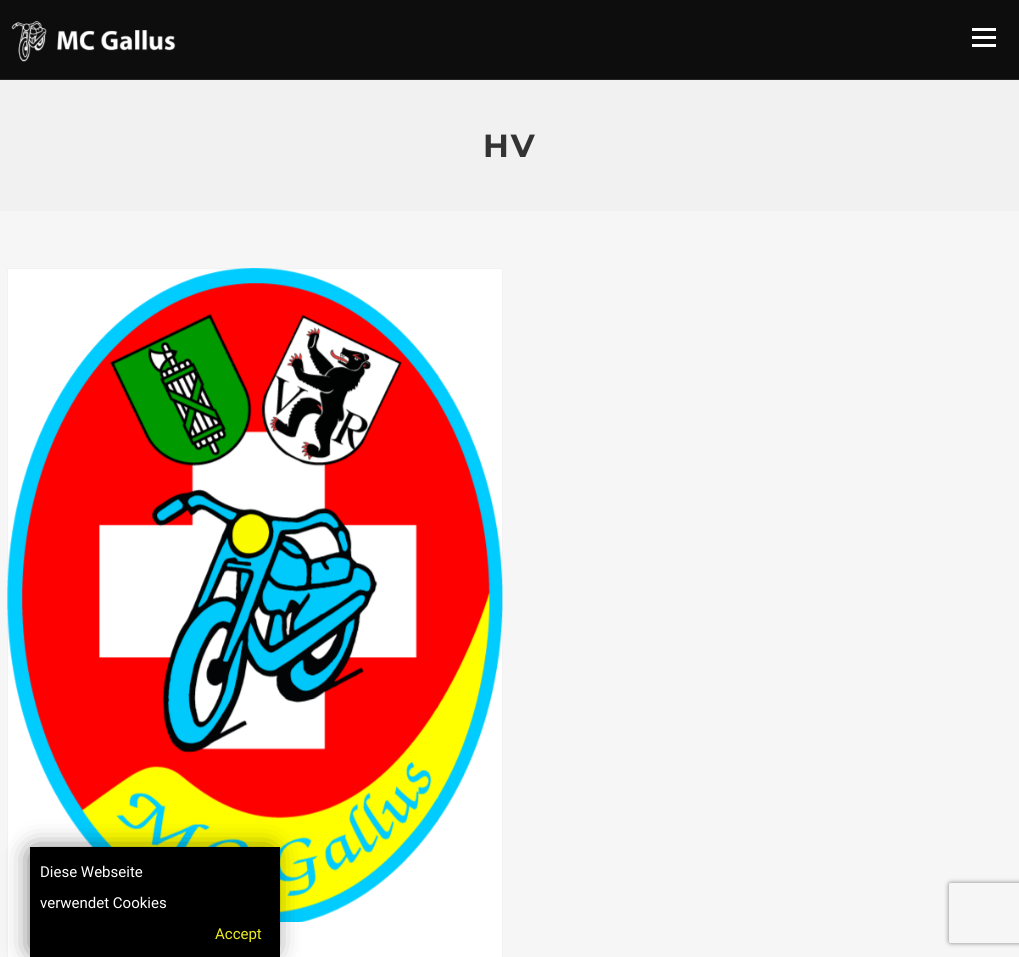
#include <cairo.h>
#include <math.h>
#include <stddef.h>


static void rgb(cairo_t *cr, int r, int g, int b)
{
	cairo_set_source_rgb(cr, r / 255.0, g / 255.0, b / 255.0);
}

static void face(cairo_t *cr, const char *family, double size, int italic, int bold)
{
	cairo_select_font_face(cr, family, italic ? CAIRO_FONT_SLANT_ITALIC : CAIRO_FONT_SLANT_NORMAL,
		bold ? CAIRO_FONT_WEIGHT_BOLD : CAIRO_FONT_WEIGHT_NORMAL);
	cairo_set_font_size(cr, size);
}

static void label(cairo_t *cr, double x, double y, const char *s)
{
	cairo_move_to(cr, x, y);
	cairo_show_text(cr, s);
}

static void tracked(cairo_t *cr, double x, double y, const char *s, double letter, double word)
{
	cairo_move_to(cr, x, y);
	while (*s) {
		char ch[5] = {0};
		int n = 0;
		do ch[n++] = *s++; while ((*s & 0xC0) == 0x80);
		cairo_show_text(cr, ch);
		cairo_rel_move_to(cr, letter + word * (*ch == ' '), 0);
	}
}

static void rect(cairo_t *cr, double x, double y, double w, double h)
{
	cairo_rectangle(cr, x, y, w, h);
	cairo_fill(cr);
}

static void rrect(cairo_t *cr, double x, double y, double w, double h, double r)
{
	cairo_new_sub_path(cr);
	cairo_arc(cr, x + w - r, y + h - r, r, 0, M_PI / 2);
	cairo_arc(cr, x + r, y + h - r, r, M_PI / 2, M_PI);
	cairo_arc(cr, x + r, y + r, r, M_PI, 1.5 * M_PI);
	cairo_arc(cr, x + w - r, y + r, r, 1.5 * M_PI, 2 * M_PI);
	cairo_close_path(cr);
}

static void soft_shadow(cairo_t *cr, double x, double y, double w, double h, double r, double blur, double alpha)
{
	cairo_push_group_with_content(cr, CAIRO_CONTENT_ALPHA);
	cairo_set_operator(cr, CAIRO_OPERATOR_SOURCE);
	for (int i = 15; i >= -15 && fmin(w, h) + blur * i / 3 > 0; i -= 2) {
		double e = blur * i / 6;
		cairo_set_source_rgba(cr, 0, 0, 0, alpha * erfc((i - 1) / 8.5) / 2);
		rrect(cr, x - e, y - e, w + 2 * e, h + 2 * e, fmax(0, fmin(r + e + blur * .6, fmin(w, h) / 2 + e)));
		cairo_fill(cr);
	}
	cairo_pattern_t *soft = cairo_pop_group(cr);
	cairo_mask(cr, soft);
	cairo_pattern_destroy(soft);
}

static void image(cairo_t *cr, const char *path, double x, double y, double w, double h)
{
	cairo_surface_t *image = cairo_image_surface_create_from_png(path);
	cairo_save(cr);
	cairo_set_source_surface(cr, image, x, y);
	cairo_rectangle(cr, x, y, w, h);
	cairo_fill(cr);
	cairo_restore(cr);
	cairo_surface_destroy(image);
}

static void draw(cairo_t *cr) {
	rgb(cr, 246, 246, 246);
	cairo_paint(cr);
	rgb(cr, 13, 13, 13);
	rect(cr, 0, 0, 1019, 79);
	rgb(cr, 37, 37, 37);
	rect(cr, 0, 79, 1019, 1);
	image(cr, "image0.png", 11, 21, 165, 41);
	rgb(cr, 255, 255, 255);
	rect(cr, 972, 28, 24, 3);
	rect(cr, 972, 36, 24, 3);
	rect(cr, 972, 44, 24, 3);
	rgb(cr, 241, 241, 241);
	rect(cr, 0, 80, 1019, 131);
	face(cr, "Montserrat", 32, 0, 1);
	rgb(cr, 51, 51, 51);
	tracked(cr, 483, 157, "HV", 2, 0);
	rgb(cr, 255, 255, 255);
	cairo_rectangle(cr, 7.5, 268.5, 495, 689);
	cairo_fill_preserve(cr);
	rgb(cr, 242, 242, 242);
	cairo_set_line_width(cr, 1);
	cairo_stroke(cr);
	image(cr, "image1.png", 7, 268, 496, 654);
	rgb(cr, 0, 0, 0);
	soft_shadow(cr, 34, 853, 236, 96, 0, 13.5, 0.75);
	rgb(cr, 0, 0, 0);
	rect(cr, 30, 847, 250, 110);
	face(cr, "Roboto", 15, 0, 0);
	rgb(cr, 255, 255, 255);
	label(cr, 40, 877, "Diese Webseite");
	label(cr, 40, 908, "verwendet Cookies");
	rgb(cr, 238, 238, 34);
	label(cr, 215, 939, "Accept");
	cairo_save(cr);
	cairo_set_fill_rule(cr, CAIRO_FILL_RULE_EVEN_ODD);
	cairo_new_path(cr);
	cairo_move_to(cr, 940, 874);
	cairo_line_to(cr, 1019, 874);
	cairo_line_to(cr, 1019, 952);
	cairo_line_to(cr, 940, 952);
	cairo_close_path(cr);
	cairo_move_to(cr, 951, 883);
	cairo_line_to(cr, 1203, 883);
	cairo_curve_to(cr, 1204, 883, 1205, 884, 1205, 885);
	cairo_line_to(cr, 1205, 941);
	cairo_curve_to(cr, 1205, 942, 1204, 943, 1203, 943);
	cairo_line_to(cr, 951, 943);
	cairo_curve_to(cr, 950, 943, 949, 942, 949, 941);
	cairo_line_to(cr, 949, 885);
	cairo_curve_to(cr, 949, 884, 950, 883, 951, 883);
	cairo_close_path(cr);
	cairo_clip(cr);
	rgb(cr, 128, 128, 128);
	soft_shadow(cr, 949, 883, 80, 60, 2, 2.5, 1);
	cairo_restore(cr);
}

int main(void) {
	cairo_surface_t *surface = cairo_image_surface_create(CAIRO_FORMAT_RGB24, 1019, 957);
	cairo_t *cr = cairo_create(surface);
	cairo_font_options_t *options = cairo_font_options_create();
	cairo_font_options_set_hint_metrics(options, CAIRO_HINT_METRICS_OFF);
	cairo_font_options_set_hint_style(options, CAIRO_HINT_STYLE_NONE);
	cairo_set_font_options(cr, options);
	cairo_set_miter_limit(cr, 4);
	draw(cr);
	cairo_surface_write_to_png(surface, "render.png");
	cairo_font_options_destroy(options);
	cairo_destroy(cr);
	cairo_surface_destroy(surface);
	return 0;
}
